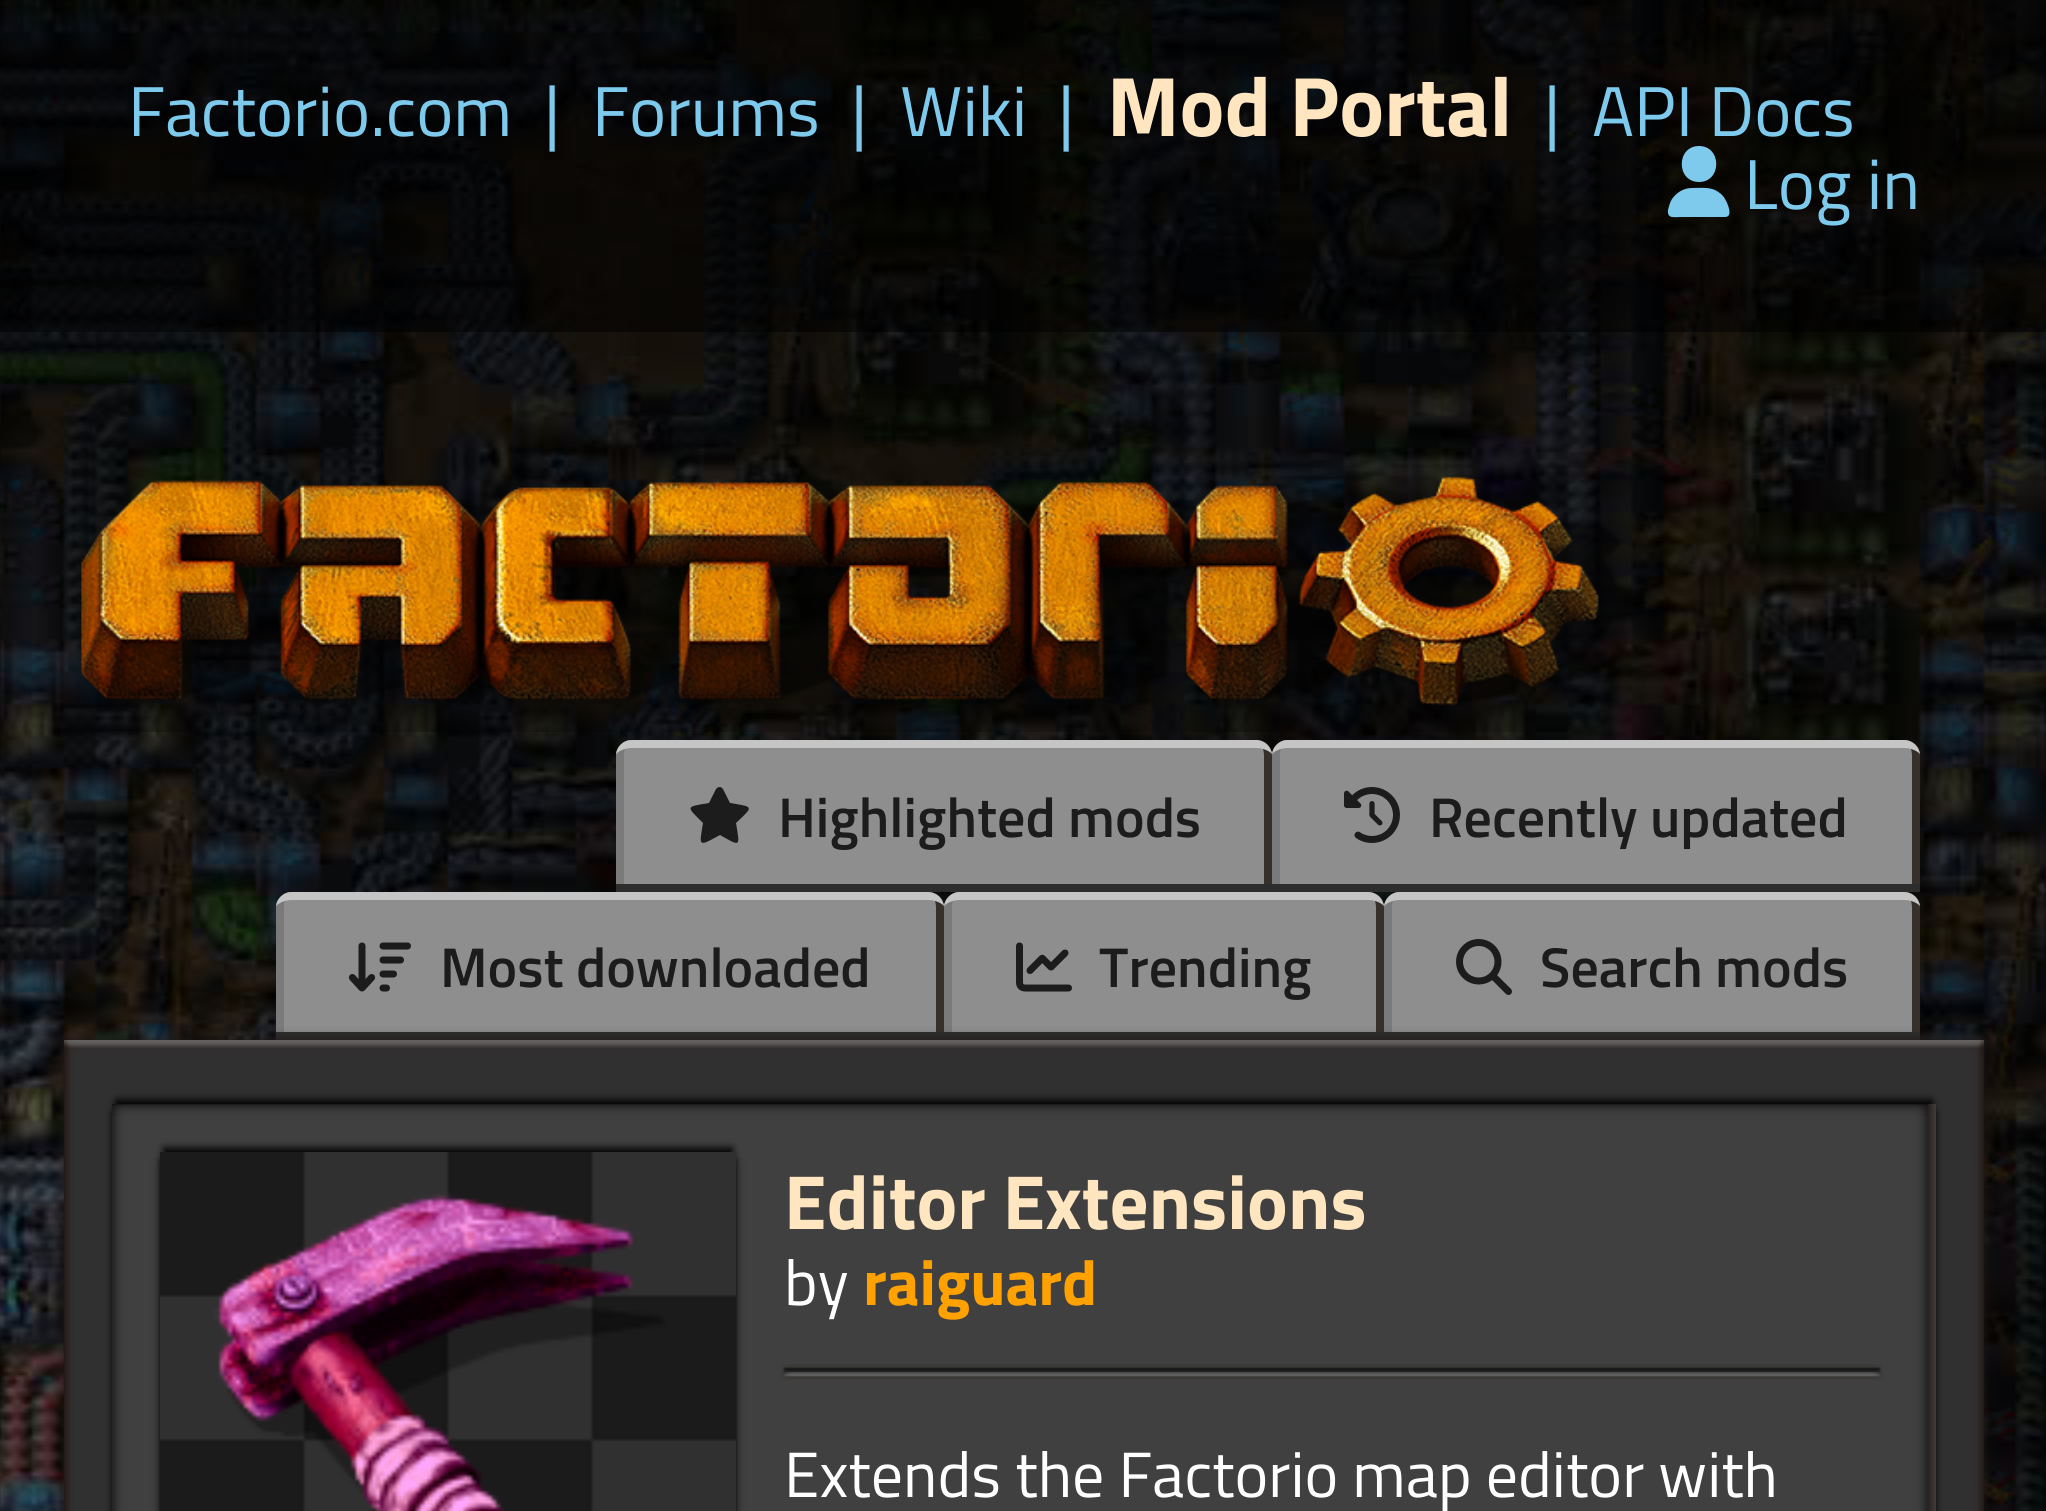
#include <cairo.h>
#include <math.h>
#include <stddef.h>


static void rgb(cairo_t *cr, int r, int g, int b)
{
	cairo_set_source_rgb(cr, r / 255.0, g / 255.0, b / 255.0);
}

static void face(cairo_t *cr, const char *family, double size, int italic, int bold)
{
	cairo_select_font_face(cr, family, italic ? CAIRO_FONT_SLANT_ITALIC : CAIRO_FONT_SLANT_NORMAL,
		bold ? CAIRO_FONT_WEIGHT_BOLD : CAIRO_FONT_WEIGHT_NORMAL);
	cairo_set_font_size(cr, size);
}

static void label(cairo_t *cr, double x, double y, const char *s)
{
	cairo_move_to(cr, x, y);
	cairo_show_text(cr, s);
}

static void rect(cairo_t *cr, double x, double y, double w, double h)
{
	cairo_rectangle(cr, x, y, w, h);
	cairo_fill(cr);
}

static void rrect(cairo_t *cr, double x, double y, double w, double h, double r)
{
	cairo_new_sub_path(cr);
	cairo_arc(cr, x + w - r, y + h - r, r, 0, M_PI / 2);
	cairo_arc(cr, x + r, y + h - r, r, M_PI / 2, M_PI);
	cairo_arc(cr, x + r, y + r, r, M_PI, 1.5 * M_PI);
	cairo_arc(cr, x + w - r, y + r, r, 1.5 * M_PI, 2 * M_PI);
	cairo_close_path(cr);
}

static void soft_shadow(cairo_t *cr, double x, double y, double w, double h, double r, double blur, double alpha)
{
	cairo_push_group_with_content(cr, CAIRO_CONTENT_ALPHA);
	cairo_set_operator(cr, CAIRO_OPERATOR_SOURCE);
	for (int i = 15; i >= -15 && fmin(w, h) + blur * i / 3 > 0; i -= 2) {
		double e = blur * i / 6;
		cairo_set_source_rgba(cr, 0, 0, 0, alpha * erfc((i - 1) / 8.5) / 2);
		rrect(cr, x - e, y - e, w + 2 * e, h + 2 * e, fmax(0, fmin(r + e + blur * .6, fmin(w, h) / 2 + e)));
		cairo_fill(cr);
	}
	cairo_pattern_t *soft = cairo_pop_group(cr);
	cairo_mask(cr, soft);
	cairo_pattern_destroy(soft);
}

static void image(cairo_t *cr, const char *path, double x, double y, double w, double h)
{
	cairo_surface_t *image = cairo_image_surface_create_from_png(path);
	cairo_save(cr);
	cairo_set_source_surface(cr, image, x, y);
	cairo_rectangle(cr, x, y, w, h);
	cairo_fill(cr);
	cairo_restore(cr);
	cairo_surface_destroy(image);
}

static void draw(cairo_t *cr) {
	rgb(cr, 255, 255, 255);
	cairo_paint(cr);
	image(cr, "image0.png", 0, 0, 2046, 1511);
	cairo_set_source_rgba(cr, 0, 0, 0, 0.5);
	rect(cr, 0, 0, 2046, 332);
	face(cr, "Titillium Web", 70.5, 0, 0);
	rgb(cr, 125, 202, 237);
	label(cr, 128, 136, "Factorio.com");
	label(cr, 544, 136, "|");
	label(cr, 592, 136, "Forums");
	label(cr, 851, 136, "|");
	label(cr, 900, 136, "Wiki");
	label(cr, 1058, 136, "|");
	face(cr, "Titillium Web", 84.5, 0, 1);
	rgb(cr, 255, 230, 192);
	label(cr, 1107, 136, "Mod Portal");
	face(cr, "Titillium Web", 70.5, 0, 0);
	rgb(cr, 125, 202, 237);
	label(cr, 1544, 136, "|");
	label(cr, 1592, 136, "API Docs");
	cairo_new_path(cr);
	cairo_move_to(cr, 1699, 182);
	cairo_curve_to(cr, 1722, 182, 1722, 146, 1699, 146);
	cairo_curve_to(cr, 1676, 146, 1676, 182, 1699, 182);
	cairo_close_path(cr);
	cairo_move_to(cr, 1692, 188);
	cairo_curve_to(cr, 1684, 188, 1677, 192, 1672, 199);
	cairo_curve_to(cr, 1670, 202, 1669, 206, 1668, 210);
	cairo_curve_to(cr, 1667, 219, 1674, 217, 1681, 217);
	cairo_line_to(cr, 1725, 217);
	cairo_curve_to(cr, 1734, 217, 1727, 202, 1725, 199);
	cairo_curve_to(cr, 1723, 195, 1719, 192, 1715, 190);
	cairo_curve_to(cr, 1708, 187, 1700, 188, 1692, 188);
	cairo_close_path(cr);
	cairo_fill(cr);
	label(cr, 1744, 209, "Log in");
	image(cr, "image1.png", 76, 476, 1569, 256);
	rgb(cr, 142, 142, 142);
	cairo_new_path(cr);
	cairo_move_to(cr, 632, 740);
	cairo_line_to(cr, 1256, 740);
	cairo_curve_to(cr, 1265, 740, 1272, 747, 1272, 756);
	cairo_line_to(cr, 1272, 892);
	cairo_line_to(cr, 616, 892);
	cairo_line_to(cr, 616, 756);
	cairo_curve_to(cr, 616, 747, 623, 740, 632, 740);
	cairo_close_path(cr);
	cairo_fill(cr);
	rgb(cr, 55, 47, 42);
	cairo_new_path(cr);
	cairo_move_to(cr, 1264, 892);
	cairo_line_to(cr, 1272, 892);
	cairo_line_to(cr, 1272, 756);
	cairo_curve_to(cr, 1272, 748, 1266, 741, 1258, 740);
	cairo_curve_to(cr, 1262, 744, 1264, 750, 1264, 756);
	cairo_close_path(cr);
	cairo_fill(cr);
	rgb(cr, 122, 122, 122);
	cairo_new_path(cr);
	cairo_move_to(cr, 630, 740);
	cairo_curve_to(cr, 622, 741, 616, 748, 616, 756);
	cairo_line_to(cr, 616, 892);
	cairo_line_to(cr, 624, 892);
	cairo_line_to(cr, 624, 756);
	cairo_curve_to(cr, 624, 750, 626, 744, 630, 740);
	cairo_close_path(cr);
	cairo_fill(cr);
	rgb(cr, 45, 45, 45);
	rect(cr, 616, 884, 656, 8);
	rgb(cr, 197, 197, 197);
	cairo_new_path(cr);
	cairo_move_to(cr, 632, 748);
	cairo_line_to(cr, 1256, 748);
	cairo_curve_to(cr, 1262, 748, 1268, 750, 1272, 754);
	cairo_curve_to(cr, 1271, 746, 1264, 740, 1256, 740);
	cairo_line_to(cr, 632, 740);
	cairo_curve_to(cr, 624, 740, 617, 746, 616, 754);
	cairo_curve_to(cr, 620, 750, 626, 748, 632, 748);
	cairo_close_path(cr);
	cairo_fill(cr);
	rgb(cr, 29, 28, 29);
	cairo_new_path(cr);
	cairo_move_to(cr, 723, 789);
	cairo_curve_to(cr, 722, 788, 721, 787, 720, 787);
	cairo_curve_to(cr, 718, 787, 717, 788, 716, 789);
	cairo_line_to(cr, 709, 803);
	cairo_curve_to(cr, 685, 807, 686, 806, 703, 823);
	cairo_curve_to(cr, 699, 847, 698, 847, 720, 835);
	cairo_curve_to(cr, 741, 847, 740, 847, 736, 823);
	cairo_curve_to(cr, 754, 806, 754, 807, 730, 803);
	cairo_close_path(cr);
	cairo_fill(cr);
	face(cr, "Titillium Web SemiBold", 56, 0, 0);
	label(cr, 778, 837, "Highlighted mods");
	rgb(cr, 142, 142, 142);
	cairo_new_path(cr);
	cairo_move_to(cr, 1288, 740);
	cairo_line_to(cr, 1904, 740);
	cairo_curve_to(cr, 1913, 740, 1920, 747, 1920, 756);
	cairo_line_to(cr, 1920, 892);
	cairo_line_to(cr, 1272, 892);
	cairo_line_to(cr, 1272, 756);
	cairo_curve_to(cr, 1272, 747, 1279, 740, 1288, 740);
	cairo_close_path(cr);
	cairo_fill(cr);
	rgb(cr, 55, 47, 42);
	cairo_new_path(cr);
	cairo_move_to(cr, 1912, 892);
	cairo_line_to(cr, 1920, 892);
	cairo_line_to(cr, 1920, 756);
	cairo_curve_to(cr, 1920, 748, 1914, 741, 1906, 740);
	cairo_curve_to(cr, 1910, 744, 1912, 750, 1912, 756);
	cairo_close_path(cr);
	cairo_fill(cr);
	rgb(cr, 122, 122, 122);
	cairo_new_path(cr);
	cairo_move_to(cr, 1286, 740);
	cairo_curve_to(cr, 1278, 741, 1272, 748, 1272, 756);
	cairo_line_to(cr, 1272, 892);
	cairo_line_to(cr, 1280, 892);
	cairo_line_to(cr, 1280, 756);
	cairo_curve_to(cr, 1280, 750, 1282, 744, 1286, 740);
	cairo_close_path(cr);
	cairo_fill(cr);
	rgb(cr, 45, 45, 45);
	rect(cr, 1272, 884, 648, 8);
	rgb(cr, 197, 197, 197);
	cairo_new_path(cr);
	cairo_move_to(cr, 1288, 748);
	cairo_line_to(cr, 1904, 748);
	cairo_curve_to(cr, 1910, 748, 1916, 750, 1920, 754);
	cairo_curve_to(cr, 1919, 746, 1912, 740, 1904, 740);
	cairo_line_to(cr, 1288, 740);
	cairo_curve_to(cr, 1280, 740, 1273, 746, 1272, 754);
	cairo_curve_to(cr, 1276, 750, 1282, 748, 1288, 748);
	cairo_close_path(cr);
	cairo_fill(cr);
	image(cr, "image2.png", 1344, 787, 56, 56);
	rgb(cr, 29, 28, 29);
	label(cr, 1429, 837, "Recently updated");
	rgb(cr, 142, 142, 142);
	cairo_new_path(cr);
	cairo_move_to(cr, 292, 892);
	cairo_line_to(cr, 928, 892);
	cairo_curve_to(cr, 937, 892, 944, 899, 944, 908);
	cairo_line_to(cr, 944, 1040);
	cairo_line_to(cr, 276, 1040);
	cairo_line_to(cr, 276, 908);
	cairo_curve_to(cr, 276, 899, 283, 892, 292, 892);
	cairo_close_path(cr);
	cairo_fill(cr);
	rgb(cr, 55, 47, 42);
	cairo_new_path(cr);
	cairo_move_to(cr, 936, 1040);
	cairo_line_to(cr, 944, 1040);
	cairo_line_to(cr, 944, 908);
	cairo_curve_to(cr, 944, 900, 938, 893, 930, 892);
	cairo_curve_to(cr, 934, 896, 936, 902, 936, 908);
	cairo_close_path(cr);
	cairo_fill(cr);
	rgb(cr, 122, 122, 122);
	cairo_new_path(cr);
	cairo_move_to(cr, 290, 892);
	cairo_curve_to(cr, 282, 893, 276, 900, 276, 908);
	cairo_line_to(cr, 276, 1040);
	cairo_line_to(cr, 284, 1040);
	cairo_line_to(cr, 284, 908);
	cairo_curve_to(cr, 284, 902, 286, 896, 290, 892);
	cairo_close_path(cr);
	cairo_fill(cr);
	rgb(cr, 45, 45, 45);
	rect(cr, 276, 1032, 668, 8);
	rgb(cr, 197, 197, 197);
	cairo_new_path(cr);
	cairo_move_to(cr, 292, 900);
	cairo_line_to(cr, 928, 900);
	cairo_curve_to(cr, 934, 900, 940, 902, 944, 906);
	cairo_curve_to(cr, 943, 898, 936, 892, 928, 892);
	cairo_line_to(cr, 292, 892);
	cairo_curve_to(cr, 284, 892, 277, 898, 276, 906);
	cairo_curve_to(cr, 280, 902, 286, 900, 292, 900);
	cairo_close_path(cr);
	cairo_fill(cr);
	image(cr, "image3.png", 348, 942, 63, 50);
	rgb(cr, 29, 28, 29);
	label(cr, 440, 987, "Most downloaded");
	rgb(cr, 142, 142, 142);
	cairo_new_path(cr);
	cairo_move_to(cr, 960, 892);
	cairo_line_to(cr, 1368, 892);
	cairo_curve_to(cr, 1377, 892, 1384, 899, 1384, 908);
	cairo_line_to(cr, 1384, 1040);
	cairo_line_to(cr, 944, 1040);
	cairo_line_to(cr, 944, 908);
	cairo_curve_to(cr, 944, 899, 951, 892, 960, 892);
	cairo_close_path(cr);
	cairo_fill(cr);
	rgb(cr, 55, 47, 42);
	cairo_new_path(cr);
	cairo_move_to(cr, 1376, 1040);
	cairo_line_to(cr, 1384, 1040);
	cairo_line_to(cr, 1384, 908);
	cairo_curve_to(cr, 1384, 900, 1378, 893, 1370, 892);
	cairo_curve_to(cr, 1374, 896, 1376, 902, 1376, 908);
	cairo_close_path(cr);
	cairo_fill(cr);
	rgb(cr, 122, 122, 122);
	cairo_new_path(cr);
	cairo_move_to(cr, 958, 892);
	cairo_curve_to(cr, 950, 893, 944, 900, 944, 908);
	cairo_line_to(cr, 944, 1040);
	cairo_line_to(cr, 952, 1040);
	cairo_line_to(cr, 952, 908);
	cairo_curve_to(cr, 952, 902, 954, 896, 958, 892);
	cairo_close_path(cr);
	cairo_fill(cr);
	rgb(cr, 45, 45, 45);
	rect(cr, 944, 1032, 440, 8);
	rgb(cr, 197, 197, 197);
	cairo_new_path(cr);
	cairo_move_to(cr, 960, 900);
	cairo_line_to(cr, 1368, 900);
	cairo_curve_to(cr, 1374, 900, 1380, 902, 1384, 906);
	cairo_curve_to(cr, 1383, 898, 1376, 892, 1368, 892);
	cairo_line_to(cr, 960, 892);
	cairo_curve_to(cr, 952, 892, 945, 898, 944, 906);
	cairo_curve_to(cr, 948, 902, 954, 900, 960, 900);
	cairo_close_path(cr);
	cairo_fill(cr);
	image(cr, "image4.png", 1016, 942, 56, 50);
	rgb(cr, 29, 28, 29);
	label(cr, 1099, 987, "Trending");
	rgb(cr, 142, 142, 142);
	cairo_new_path(cr);
	cairo_move_to(cr, 1400, 892);
	cairo_line_to(cr, 1904, 892);
	cairo_curve_to(cr, 1913, 892, 1920, 899, 1920, 908);
	cairo_line_to(cr, 1920, 1040);
	cairo_line_to(cr, 1384, 1040);
	cairo_line_to(cr, 1384, 908);
	cairo_curve_to(cr, 1384, 899, 1391, 892, 1400, 892);
	cairo_close_path(cr);
	cairo_fill(cr);
	rgb(cr, 55, 47, 42);
	cairo_new_path(cr);
	cairo_move_to(cr, 1912, 1040);
	cairo_line_to(cr, 1920, 1040);
	cairo_line_to(cr, 1920, 908);
	cairo_curve_to(cr, 1920, 900, 1914, 893, 1906, 892);
	cairo_curve_to(cr, 1910, 896, 1912, 902, 1912, 908);
	cairo_close_path(cr);
	cairo_fill(cr);
	rgb(cr, 122, 122, 122);
	cairo_new_path(cr);
	cairo_move_to(cr, 1398, 892);
	cairo_curve_to(cr, 1390, 893, 1384, 900, 1384, 908);
	cairo_line_to(cr, 1384, 1040);
	cairo_line_to(cr, 1392, 1040);
	cairo_line_to(cr, 1392, 908);
	cairo_curve_to(cr, 1392, 902, 1394, 896, 1398, 892);
	cairo_close_path(cr);
	cairo_fill(cr);
	rgb(cr, 45, 45, 45);
	rect(cr, 1384, 1032, 536, 8);
	rgb(cr, 197, 197, 197);
	cairo_new_path(cr);
	cairo_move_to(cr, 1400, 900);
	cairo_line_to(cr, 1904, 900);
	cairo_curve_to(cr, 1910, 900, 1916, 902, 1920, 906);
	cairo_curve_to(cr, 1919, 898, 1912, 892, 1904, 892);
	cairo_line_to(cr, 1400, 892);
	cairo_curve_to(cr, 1392, 892, 1385, 898, 1384, 906);
	cairo_curve_to(cr, 1388, 902, 1394, 900, 1400, 900);
	cairo_close_path(cr);
	cairo_fill(cr);
	image(cr, "image5.png", 1456, 939, 56, 56);
	rgb(cr, 29, 28, 29);
	label(cr, 1540, 987, "Search mods");
	rgb(cr, 32, 24, 21);
	soft_shadow(cr, 64, 1040, 1920, 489, 0, 6, 1);
	rgb(cr, 49, 48, 49);
	rect(cr, 80, 1056, 1888, 455);
	image(cr, "image6.png", 64, 1040, 1920, 471);
	rgb(cr, 15, 13, 12);
	soft_shadow(cr, 128, 1112, 1808, 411, 0, 4, 1);
	soft_shadow(cr, 112, 1112, 1808, 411, 0, 4, 1);
	rgb(cr, 0, 0, 0);
	soft_shadow(cr, 116, 1100, 1816, 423, 0, 4, 1);
	rgb(cr, 65, 64, 64);
	rect(cr, 112, 1104, 1824, 407);
	image(cr, "image7.png", 112, 1104, 1824, 407);
	rgb(cr, 15, 13, 12);
	soft_shadow(cr, 176, 1160, 560, 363, 0, 4, 1);
	soft_shadow(cr, 160, 1160, 560, 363, 0, 4, 1);
	rgb(cr, 0, 0, 0);
	soft_shadow(cr, 164, 1148, 568, 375, 0, 4, 1);
	image(cr, "image8.png", 160, 1152, 576, 359);
	face(cr, "Titillium Web", 76.75, 0, 1);
	rgb(cr, 255, 230, 192);
	label(cr, 784, 1229, "Editor Extensions");
	face(cr, "Titillium Web", 64, 0, 0);
	rgb(cr, 255, 255, 255);
	label(cr, 784, 1305, "by");
	face(cr, "Titillium Web", 64, 0, 1);
	rgb(cr, 255, 162, 0);
	label(cr, 863, 1305, "raiguard");
	image(cr, "image9.png", 781, 1364, 1102, 16);
	face(cr, "Titillium Web", 64, 0, 0);
	rgb(cr, 255, 255, 255);
	label(cr, 784, 1497, "Extends the Factorio map editor with");
}

int main(void) {
	cairo_surface_t *surface = cairo_image_surface_create(CAIRO_FORMAT_RGB24, 2046, 1511);
	cairo_t *cr = cairo_create(surface);
	cairo_font_options_t *options = cairo_font_options_create();
	cairo_font_options_set_hint_metrics(options, CAIRO_HINT_METRICS_OFF);
	cairo_font_options_set_hint_style(options, CAIRO_HINT_STYLE_NONE);
	cairo_set_font_options(cr, options);
	cairo_set_miter_limit(cr, 4);
	draw(cr);
	cairo_surface_write_to_png(surface, "render.png");
	cairo_font_options_destroy(options);
	cairo_destroy(cr);
	cairo_surface_destroy(surface);
	return 0;
}
